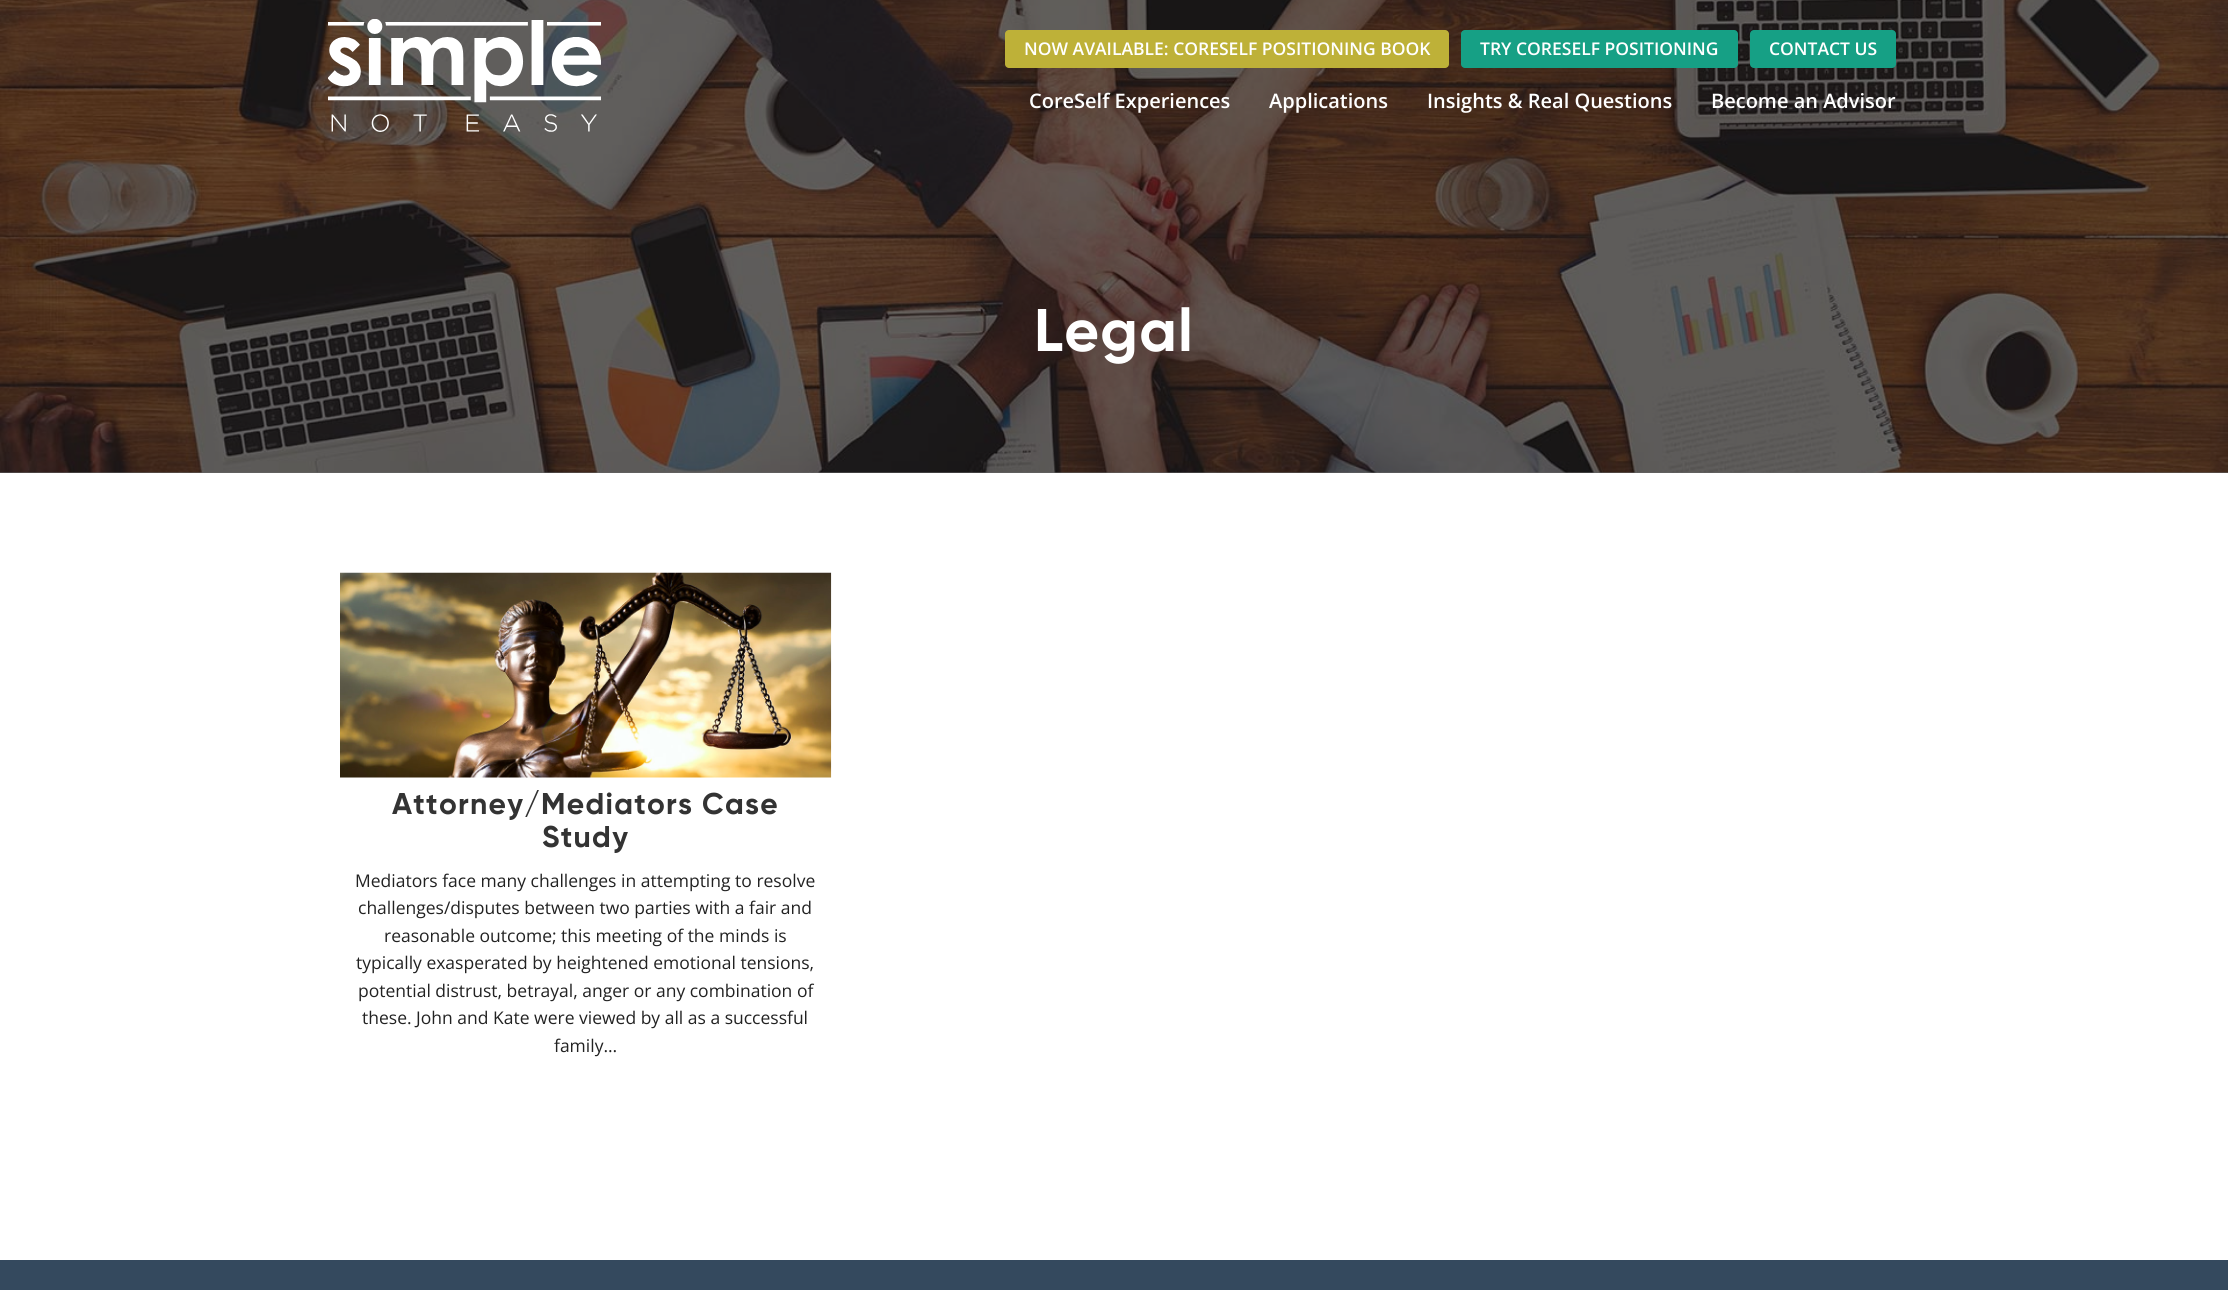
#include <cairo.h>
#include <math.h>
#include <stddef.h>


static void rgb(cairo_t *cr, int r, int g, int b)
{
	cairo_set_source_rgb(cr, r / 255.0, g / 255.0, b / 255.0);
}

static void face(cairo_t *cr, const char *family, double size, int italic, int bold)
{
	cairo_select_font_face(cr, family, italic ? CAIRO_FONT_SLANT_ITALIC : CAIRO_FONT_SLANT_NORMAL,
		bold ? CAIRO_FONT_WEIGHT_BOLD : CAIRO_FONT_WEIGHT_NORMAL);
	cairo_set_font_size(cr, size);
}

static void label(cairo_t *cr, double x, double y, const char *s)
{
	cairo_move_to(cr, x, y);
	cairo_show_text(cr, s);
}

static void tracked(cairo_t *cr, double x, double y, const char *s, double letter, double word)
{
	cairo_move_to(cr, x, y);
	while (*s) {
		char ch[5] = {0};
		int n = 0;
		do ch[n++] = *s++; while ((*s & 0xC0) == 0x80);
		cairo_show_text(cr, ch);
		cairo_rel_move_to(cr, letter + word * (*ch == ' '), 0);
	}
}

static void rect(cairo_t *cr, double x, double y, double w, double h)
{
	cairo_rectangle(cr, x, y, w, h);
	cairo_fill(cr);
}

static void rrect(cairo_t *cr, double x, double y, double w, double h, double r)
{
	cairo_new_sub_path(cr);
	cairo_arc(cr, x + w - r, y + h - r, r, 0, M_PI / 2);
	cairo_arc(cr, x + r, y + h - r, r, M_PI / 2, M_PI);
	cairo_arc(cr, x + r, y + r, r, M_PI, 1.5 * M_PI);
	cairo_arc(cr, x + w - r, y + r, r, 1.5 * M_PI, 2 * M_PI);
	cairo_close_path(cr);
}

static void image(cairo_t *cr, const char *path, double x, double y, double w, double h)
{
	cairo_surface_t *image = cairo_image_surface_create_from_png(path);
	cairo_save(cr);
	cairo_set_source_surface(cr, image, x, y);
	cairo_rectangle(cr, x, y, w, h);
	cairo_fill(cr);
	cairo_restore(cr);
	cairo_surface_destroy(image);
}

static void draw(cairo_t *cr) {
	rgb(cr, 255, 255, 255);
	cairo_paint(cr);
	rgb(cr, 102, 102, 102);
	rect(cr, 0, 472, 2228, 1);
	image(cr, "image1.png", 0, 0, 2228, 473);
	image(cr, "image0.png", 328, 19, 273, 113);
	rgb(cr, 190, 177, 56);
	rrect(cr, 1005, 30, 444, 38, 4);
	cairo_fill(cr);
	face(cr, "Open Sans SemiBold", 17.5, 0, 0);
	rgb(cr, 255, 255, 255);
	label(cr, 1024, 55, "NOW AVAILABLE: CORESELF POSITIONING BOOK");
	rgb(cr, 22, 160, 133);
	rrect(cr, 1461, 30, 277, 38, 4);
	cairo_fill(cr);
	rgb(cr, 255, 255, 255);
	label(cr, 1480, 55, "TRY CORESELF POSITIONING");
	rgb(cr, 22, 160, 133);
	rrect(cr, 1750, 30, 146, 38, 4);
	cairo_fill(cr);
	rgb(cr, 255, 255, 255);
	label(cr, 1769, 55, "CONTACT US");
	face(cr, "Open Sans SemiBold", 20, 0, 0);
	label(cr, 1029, 108, "CoreSelf Experiences");
	label(cr, 1269, 108, "Applications");
	label(cr, 1427, 108, "Insights & Real Questions");
	label(cr, 1711, 108, "Become an Advisor");
	face(cr, "Gilroy", 60, 0, 1);
	tracked(cr, 1034, 351, "Legal", 1.25, 0);
	image(cr, "image2.png", 340, 572, 492, 206);
	face(cr, "Gilroy", 30, 0, 1);
	rgb(cr, 51, 51, 51);
	tracked(cr, 392, 814, "Attorney/Mediators Case", 1.25, 0);
	tracked(cr, 542, 847, "Study", 1.25, 0);
	face(cr, "Open Sans", 17.5, 0, 0);
	rgb(cr, 34, 34, 34);
	label(cr, 355, 887, "Mediators face many challenges in attempting to resolve");
	label(cr, 358, 914, "challenges/disputes between two parties with a fair and");
	label(cr, 384, 942, "reasonable outcome; this meeting of the minds is");
	label(cr, 356, 969, "typically exasperated by heightened emotional tensions,");
	label(cr, 358, 997, "potential distrust, betrayal, anger or any combination of");
	label(cr, 362, 1024, "these. John and Kate were viewed by all as a successful");
	label(cr, 554, 1052, "family…");
	rgb(cr, 52, 73, 94);
	rect(cr, 0, 1260, 2228, 30);
}

int main(void) {
	cairo_surface_t *surface = cairo_image_surface_create(CAIRO_FORMAT_RGB24, 2228, 1290);
	cairo_t *cr = cairo_create(surface);
	cairo_font_options_t *options = cairo_font_options_create();
	cairo_font_options_set_hint_metrics(options, CAIRO_HINT_METRICS_OFF);
	cairo_font_options_set_hint_style(options, CAIRO_HINT_STYLE_NONE);
	cairo_set_font_options(cr, options);
	cairo_set_miter_limit(cr, 4);
	draw(cr);
	cairo_surface_write_to_png(surface, "render.png");
	cairo_font_options_destroy(options);
	cairo_destroy(cr);
	cairo_surface_destroy(surface);
	return 0;
}
